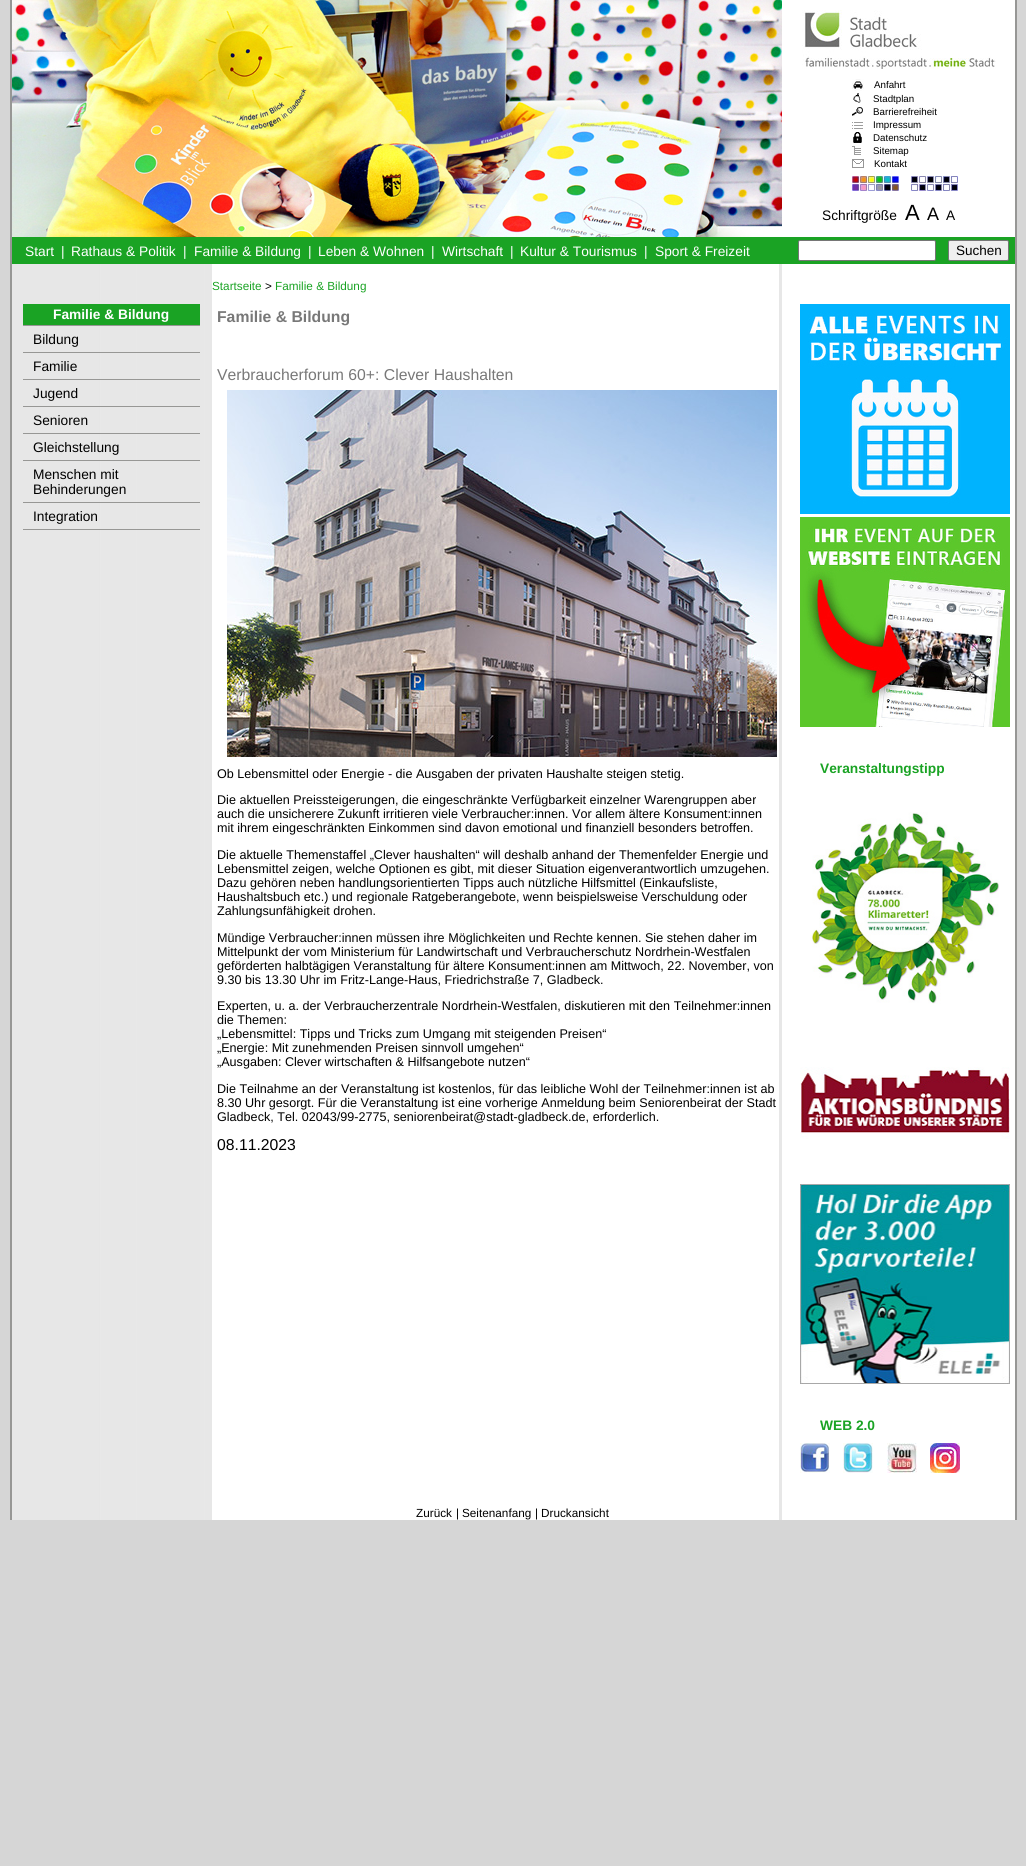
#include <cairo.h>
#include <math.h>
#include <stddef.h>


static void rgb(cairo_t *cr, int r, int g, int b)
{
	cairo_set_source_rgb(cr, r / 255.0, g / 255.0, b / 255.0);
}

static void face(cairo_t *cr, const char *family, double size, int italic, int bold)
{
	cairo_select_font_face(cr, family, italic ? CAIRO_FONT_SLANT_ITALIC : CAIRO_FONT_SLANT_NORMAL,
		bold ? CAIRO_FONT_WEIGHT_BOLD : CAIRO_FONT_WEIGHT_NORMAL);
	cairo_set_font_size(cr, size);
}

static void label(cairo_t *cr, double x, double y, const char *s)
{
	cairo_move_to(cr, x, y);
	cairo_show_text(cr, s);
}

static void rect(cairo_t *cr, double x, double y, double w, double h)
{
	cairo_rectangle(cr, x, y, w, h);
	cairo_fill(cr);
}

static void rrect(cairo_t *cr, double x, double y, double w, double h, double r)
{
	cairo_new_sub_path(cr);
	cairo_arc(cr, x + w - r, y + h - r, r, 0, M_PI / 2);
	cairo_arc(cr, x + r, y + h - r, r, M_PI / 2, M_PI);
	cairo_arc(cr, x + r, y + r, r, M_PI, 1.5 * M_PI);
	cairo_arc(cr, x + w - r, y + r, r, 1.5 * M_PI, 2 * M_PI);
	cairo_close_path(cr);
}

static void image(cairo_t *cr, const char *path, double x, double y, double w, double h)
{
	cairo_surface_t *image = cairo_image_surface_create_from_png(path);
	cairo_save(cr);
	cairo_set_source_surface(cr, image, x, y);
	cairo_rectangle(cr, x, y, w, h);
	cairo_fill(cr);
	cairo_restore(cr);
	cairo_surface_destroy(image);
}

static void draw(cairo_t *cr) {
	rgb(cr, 214, 214, 214);
	cairo_paint(cr);
	image(cr, "image0.png", 12, 264, 1003, 1256);
	rgb(cr, 151, 151, 149);
	rect(cr, 1015, 0, 2, 1520);
	rect(cr, 10, 0, 2, 1520);
	rgb(cr, 255, 255, 255);
	rect(cr, 782, 0, 233, 237);
	image(cr, "image1.png", 12, 0, 770, 237);
	image(cr, "image2.png", 802, 10, 194, 59);
	image(cr, "image3.png", 852, 79, 12, 12);
	face(cr, "Liberation Sans", 9.75, 0, 0);
	rgb(cr, 0, 0, 0);
	label(cr, 874, 88, "Anfahrt");
	image(cr, "image4.png", 853, 93, 8, 10);
	label(cr, 873, 102, "Stadtplan");
	image(cr, "image5.png", 852, 107, 11, 9);
	label(cr, 873, 115, "Barrierefreiheit");
	image(cr, "image6.png", 852, 122, 11, 7);
	label(cr, 873, 128, "Impressum");
	image(cr, "image7.png", 853, 132, 9, 11);
	label(cr, 873, 141, "Datenschutz");
	image(cr, "image8.png", 852, 146, 9, 9);
	label(cr, 873, 154, "Sitemap");
	image(cr, "image9.png", 852, 159, 12, 9);
	label(cr, 874, 167, "Kontakt");
	image(cr, "image10.png", 852, 176, 47, 15);
	image(cr, "image11.png", 911, 176, 47, 15);
	face(cr, "Liberation Sans", 13.75, 0, 0);
	label(cr, 822, 220, "Schriftgröße");
	face(cr, "Liberation Sans", 22, 0, 0);
	label(cr, 905, 220, "A");
	face(cr, "Liberation Sans", 18, 0, 0);
	label(cr, 927, 220, "A");
	face(cr, "Liberation Sans", 13.75, 0, 0);
	label(cr, 946, 220, "A");
	rgb(cr, 26, 163, 36);
	rect(cr, 12, 237, 1003, 27);
	rgb(cr, 255, 255, 255);
	label(cr, 25, 256, "Start");
	label(cr, 61, 256, "|");
	label(cr, 71, 256, "Rathaus & Politik");
	label(cr, 183, 256, "|");
	label(cr, 194, 256, "Familie & Bildung");
	label(cr, 308, 256, "|");
	label(cr, 318, 256, "Leben & Wohnen");
	label(cr, 431, 256, "|");
	label(cr, 442, 256, "Wirtschaft");
	label(cr, 510, 256, "|");
	label(cr, 520, 256, "Kultur & Tourismus");
	label(cr, 644, 256, "|");
	label(cr, 655, 256, "Sport & Freizeit");
	rrect(cr, 798.5, 240.5, 137, 20, 1.5);
	cairo_fill_preserve(cr);
	rgb(cr, 118, 118, 118);
	cairo_set_line_width(cr, 1);
	cairo_stroke(cr);
	rgb(cr, 239, 239, 239);
	rrect(cr, 948.5, 240.5, 60, 20, 1.5);
	cairo_fill_preserve(cr);
	rgb(cr, 118, 118, 118);
	cairo_stroke(cr);
	face(cr, "Liberation Sans", 13.5, 0, 0);
	rgb(cr, 0, 0, 0);
	label(cr, 956, 255, "Suchen");
	face(cr, "Liberation Sans", 11.75, 0, 0);
	rgb(cr, 26, 163, 36);
	label(cr, 212, 290, "Startseite");
	rgb(cr, 0, 0, 0);
	label(cr, 265, 290, ">");
	rgb(cr, 26, 163, 36);
	label(cr, 275, 290, "Familie & Bildung");
	rect(cr, 23, 304, 177, 21);
	face(cr, "Liberation Sans", 13.75, 0, 1);
	rgb(cr, 255, 255, 255);
	label(cr, 53, 319, "Familie & Bildung");
	rgb(cr, 151, 151, 149);
	rect(cr, 23, 325, 177, 1);
	face(cr, "Liberation Sans", 13.75, 0, 0);
	rgb(cr, 0, 0, 0);
	label(cr, 33, 344, "Bildung");
	rgb(cr, 151, 151, 149);
	rect(cr, 23, 352, 177, 1);
	rgb(cr, 0, 0, 0);
	label(cr, 33, 371, "Familie");
	rgb(cr, 151, 151, 149);
	rect(cr, 23, 379, 177, 1);
	rgb(cr, 0, 0, 0);
	label(cr, 33, 398, "Jugend");
	rgb(cr, 151, 151, 149);
	rect(cr, 23, 406, 177, 1);
	rgb(cr, 0, 0, 0);
	label(cr, 33, 425, "Senioren");
	rgb(cr, 151, 151, 149);
	rect(cr, 23, 433, 177, 1);
	rgb(cr, 0, 0, 0);
	label(cr, 33, 452, "Gleichstellung");
	rgb(cr, 151, 151, 149);
	rect(cr, 23, 460, 177, 1);
	rgb(cr, 0, 0, 0);
	label(cr, 33, 479, "Menschen mit");
	label(cr, 33, 494, "Behinderungen");
	rgb(cr, 151, 151, 149);
	rect(cr, 23, 502, 177, 1);
	rgb(cr, 0, 0, 0);
	label(cr, 33, 521, "Integration");
	rgb(cr, 151, 151, 149);
	rect(cr, 23, 529, 177, 1);
	face(cr, "Liberation Sans", 15.75, 0, 1);
	rgb(cr, 120, 120, 120);
	label(cr, 217, 322, "Familie & Bildung");
	face(cr, "Liberation Sans", 15.75, 0, 0);
	label(cr, 217, 380, "Verbraucherforum 60+: Clever Haushalten");
	image(cr, "image12.png", 227, 390, 550, 367);
	face(cr, "Liberation Sans", 12.6, 0, 0);
	rgb(cr, 0, 0, 0);
	label(cr, 217, 778, "Ob Lebensmittel oder Energie - die Ausgaben der privaten Haushalte steigen stetig.");
	label(cr, 217, 804, "Die aktuellen Preissteigerungen, die eingeschränkte Verfügbarkeit einzelner Warengruppen aber");
	label(cr, 217, 818, "auch die unsicherere Zukunft irritieren viele Verbraucher:innen. Vor allem ältere Konsument:innen");
	label(cr, 217, 832, "mit ihrem eingeschränkten Einkommen sind davon emotional und finanziell besonders betroffen.");
	label(cr, 217, 859, "Die aktuelle Themenstaffel „Clever haushalten“ will deshalb anhand der Themenfelder Energie und");
	label(cr, 217, 873, "Lebensmittel zeigen, welche Optionen es gibt, mit dieser Situation eigenverantwortlich umzugehen.");
	label(cr, 217, 887, "Dazu gehören neben handlungsorientierten Tipps auch nützliche Hilfsmittel (Einkaufsliste,");
	label(cr, 217, 901, "Haushaltsbuch etc.) und regionale Ratgeberangebote, wenn beispielsweise Verschuldung oder");
	label(cr, 217, 915, "Zahlungsunfähigkeit drohen.");
	label(cr, 217, 942, "Mündige Verbraucher:innen müssen ihre Möglichkeiten und Rechte kennen. Sie stehen daher im");
	label(cr, 217, 956, "Mittelpunkt der vom Ministerium für Landwirtschaft und Verbraucherschutz Nordrhein-Westfalen");
	label(cr, 217, 970, "geförderten halbtägigen Veranstaltung für ältere Konsument:innen am Mittwoch, 22. November, von");
	label(cr, 217, 984, "9.30 bis 13.30 Uhr im Fritz-Lange-Haus, Friedrichstraße 7, Gladbeck.");
	label(cr, 217, 1010, "Experten, u. a. der Verbraucherzentrale Nordrhein-Westfalen, diskutieren mit den Teilnehmer:innen");
	label(cr, 217, 1024, "die Themen:");
	label(cr, 217, 1038, "„Lebensmittel: Tipps und Tricks zum Umgang mit steigenden Preisen“");
	label(cr, 217, 1052, "„Energie: Mit zunehmenden Preisen sinnvoll umgehen“");
	label(cr, 217, 1066, "„Ausgaben: Clever wirtschaften & Hilfsangebote nutzen“");
	label(cr, 217, 1093, "Die Teilnahme an der Veranstaltung ist kostenlos, für das leibliche Wohl der Teilnehmer:innen ist ab");
	label(cr, 217, 1107, "8.30 Uhr gesorgt. Für die Veranstaltung ist eine vorherige Anmeldung beim Seniorenbeirat der Stadt");
	label(cr, 217, 1121, "Gladbeck, Tel. 02043/99-2775, seniorenbeirat@stadt-gladbeck.de, erforderlich.");
	face(cr, "Liberation Sans", 15.75, 0, 0);
	label(cr, 217, 1150, "08.11.2023");
	image(cr, "image13.png", 800, 304, 210, 210);
	image(cr, "image14.png", 800, 517, 210, 210);
	face(cr, "Liberation Sans", 13.75, 0, 1);
	rgb(cr, 26, 163, 36);
	label(cr, 820, 773, "Veranstaltungstipp");
	image(cr, "image15.png", 810, 812, 189, 192);
	image(cr, "image16.png", 800, 1067, 210, 72);
	image(cr, "image17.png", 800, 1184, 210, 200);
	label(cr, 820, 1430, "WEB 2.0");
	image(cr, "image18.png", 800, 1443, 30, 30);
	image(cr, "image19.png", 843, 1443, 30, 30);
	image(cr, "image20.png", 887, 1443, 30, 30);
	image(cr, "image21.png", 930, 1443, 30, 30);
	face(cr, "Liberation Sans", 11.75, 0, 0);
	rgb(cr, 0, 0, 0);
	label(cr, 416, 1517, "Zurück");
	label(cr, 456, 1517, "|");
	label(cr, 462, 1517, "Seitenanfang");
	label(cr, 535, 1517, "|");
	label(cr, 541, 1517, "Druckansicht");
}

int main(void) {
	cairo_surface_t *surface = cairo_image_surface_create(CAIRO_FORMAT_RGB24, 1026, 1866);
	cairo_t *cr = cairo_create(surface);
	cairo_font_options_t *options = cairo_font_options_create();
	cairo_font_options_set_hint_metrics(options, CAIRO_HINT_METRICS_OFF);
	cairo_font_options_set_hint_style(options, CAIRO_HINT_STYLE_NONE);
	cairo_set_font_options(cr, options);
	cairo_set_miter_limit(cr, 4);
	draw(cr);
	cairo_surface_write_to_png(surface, "render.png");
	cairo_font_options_destroy(options);
	cairo_destroy(cr);
	cairo_surface_destroy(surface);
	return 0;
}
